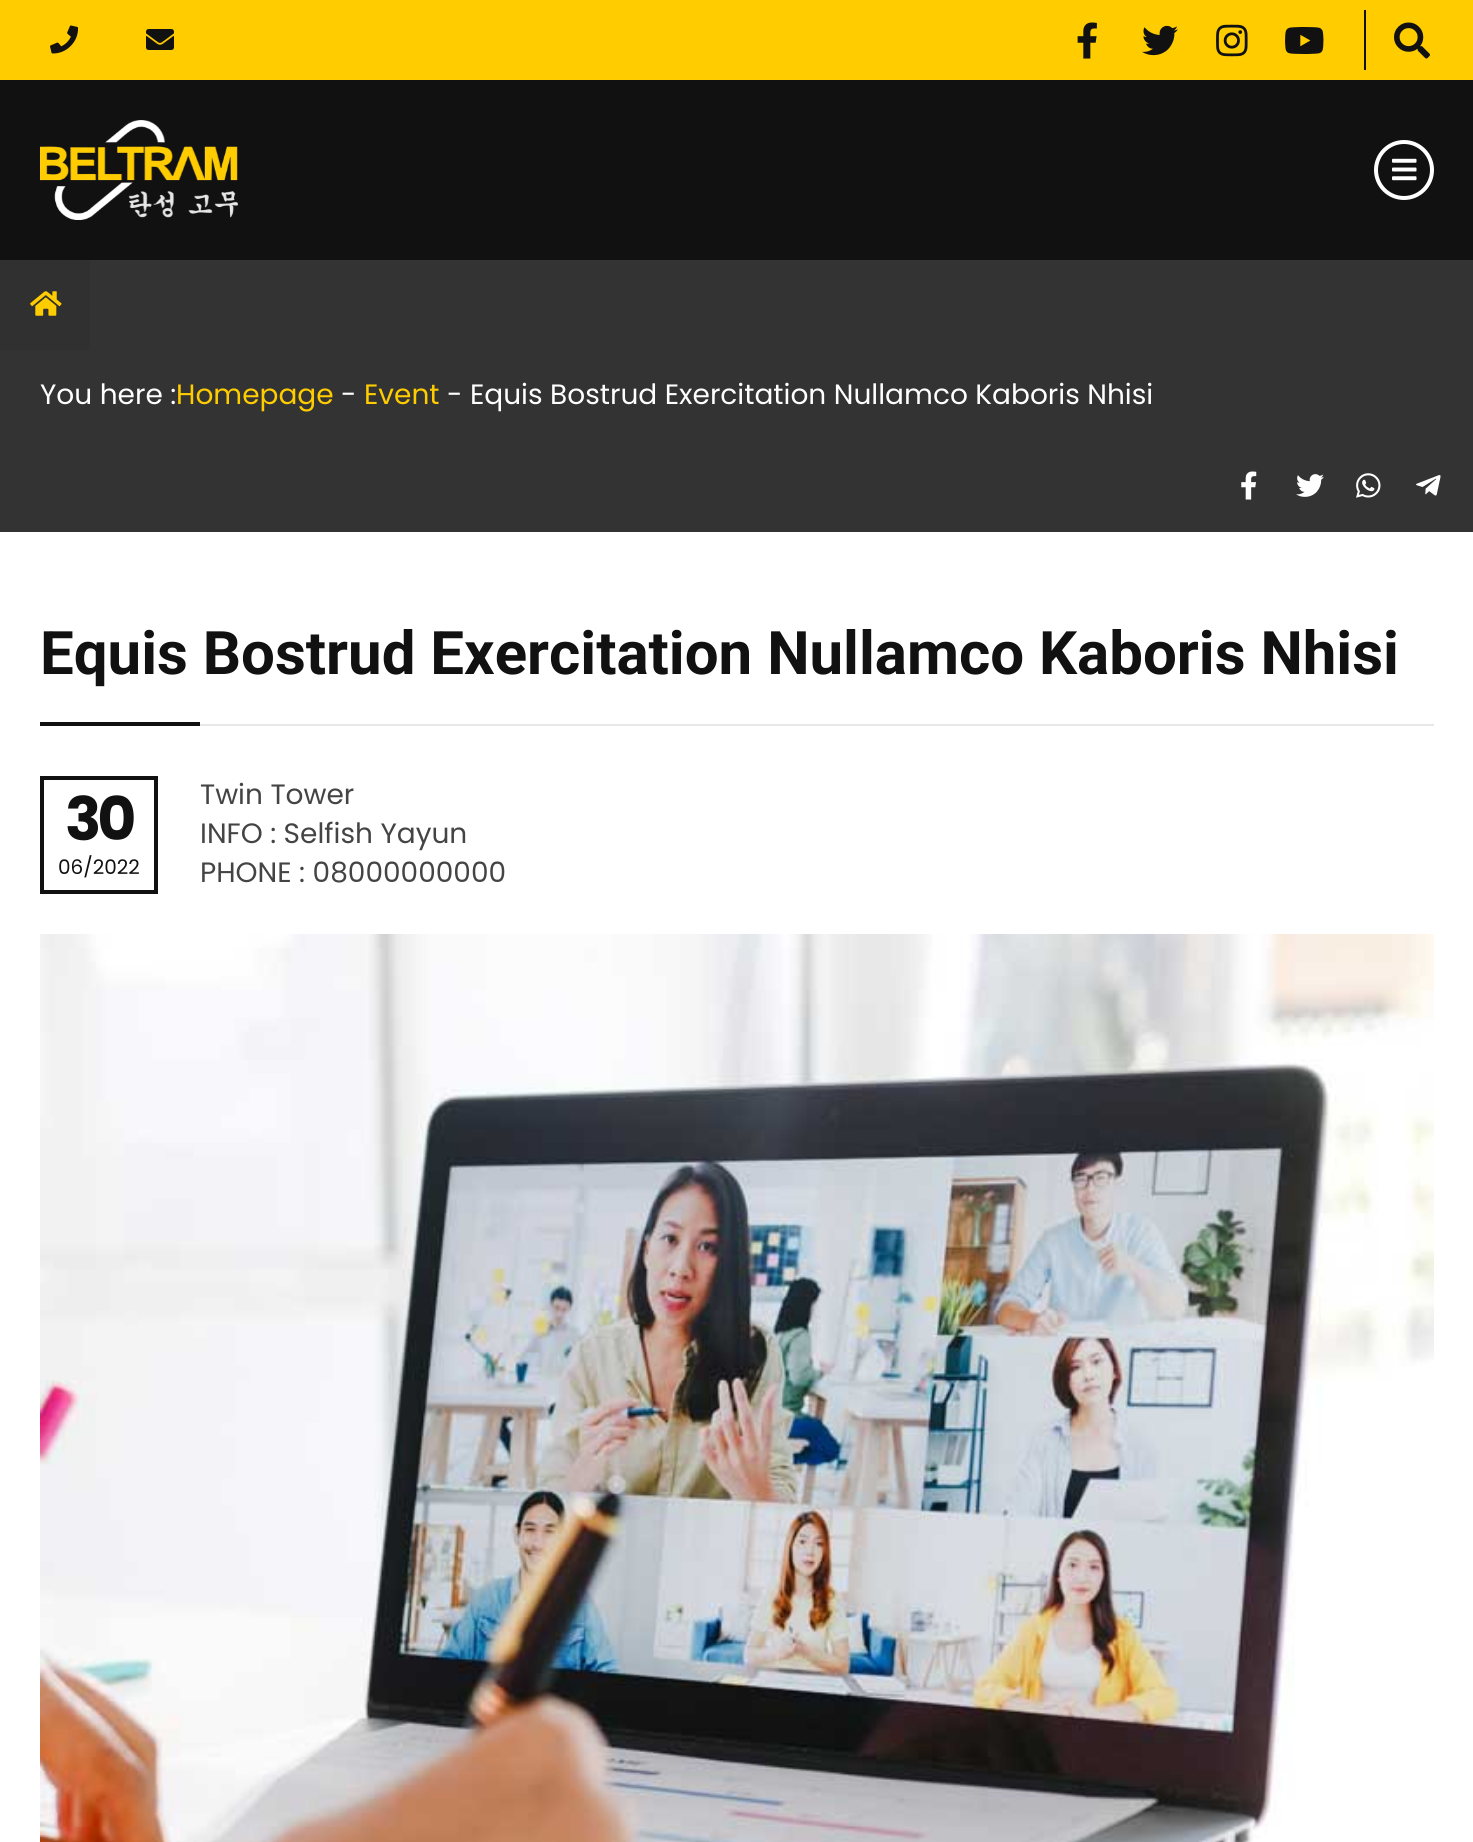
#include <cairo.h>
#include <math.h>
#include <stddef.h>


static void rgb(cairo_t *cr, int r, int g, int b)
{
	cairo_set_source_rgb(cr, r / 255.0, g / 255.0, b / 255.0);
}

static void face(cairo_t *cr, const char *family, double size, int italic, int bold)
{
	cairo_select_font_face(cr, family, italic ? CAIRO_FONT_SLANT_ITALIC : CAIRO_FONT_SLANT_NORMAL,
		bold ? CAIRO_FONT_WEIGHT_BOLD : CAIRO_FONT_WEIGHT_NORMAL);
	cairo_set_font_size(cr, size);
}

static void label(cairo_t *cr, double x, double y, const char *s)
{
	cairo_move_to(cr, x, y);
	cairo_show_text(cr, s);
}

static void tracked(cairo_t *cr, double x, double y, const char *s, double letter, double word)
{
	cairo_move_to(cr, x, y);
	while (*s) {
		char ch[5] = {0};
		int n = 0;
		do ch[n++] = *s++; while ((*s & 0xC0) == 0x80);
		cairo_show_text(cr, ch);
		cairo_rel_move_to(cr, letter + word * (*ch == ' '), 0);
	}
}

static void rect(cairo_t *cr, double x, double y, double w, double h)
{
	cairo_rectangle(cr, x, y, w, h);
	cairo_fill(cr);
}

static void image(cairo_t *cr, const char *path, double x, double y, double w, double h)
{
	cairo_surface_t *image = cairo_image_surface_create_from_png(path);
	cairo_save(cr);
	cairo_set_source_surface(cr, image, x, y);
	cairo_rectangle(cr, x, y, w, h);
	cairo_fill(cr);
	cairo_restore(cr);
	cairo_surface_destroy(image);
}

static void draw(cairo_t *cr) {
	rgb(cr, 255, 255, 255);
	cairo_paint(cr);
	rgb(cr, 255, 204, 0);
	rect(cr, 0, 0, 1473, 80);
	image(cr, "image0.png", 50, 25, 29, 29);
	image(cr, "image1.png", 146, 29, 28, 21);
	image(cr, "image2.png", 1077, 22, 20, 37);
	image(cr, "image3.png", 1142, 25, 36, 31);
	image(cr, "image4.png", 1216, 24, 32, 33);
	image(cr, "image5.png", 1285, 27, 39, 27);
	rgb(cr, 17, 17, 17);
	rect(cr, 1364, 10, 2, 60);
	image(cr, "image6.png", 1394, 22, 36, 37);
	rect(cr, 0, 80, 1473, 180);
	image(cr, "image7.png", 40, 120, 198, 100);
	cairo_arc(cr, 1404, 170, 28, 0, 2 * M_PI);
	rgb(cr, 255, 255, 255);
	cairo_set_line_width(cr, 4);
	cairo_stroke(cr);
	image(cr, "image8.png", 1392, 158, 25, 23);
	rgb(cr, 51, 51, 51);
	rect(cr, 0, 260, 1473, 272);
	rgb(cr, 48, 48, 48);
	rect(cr, 0, 260, 90, 90);
	image(cr, "image9.png", 30, 291, 32, 25);
	face(cr, "Poppins", 28, 0, 0);
	rgb(cr, 255, 255, 255);
	label(cr, 40, 404, "You here :");
	rgb(cr, 255, 204, 0);
	label(cr, 176, 404, "Homepage");
	rgb(cr, 255, 255, 255);
	label(cr, 341, 404, "-");
	rgb(cr, 255, 204, 0);
	label(cr, 364, 404, "Event");
	rgb(cr, 255, 255, 255);
	label(cr, 447, 404, "- Equis Bostrud Exercitation Nullamco Kaboris Nhisi");
	image(cr, "image10.png", 1241, 471, 16, 29);
	image(cr, "image11.png", 1296, 474, 28, 23);
	image(cr, "image12.png", 1356, 473, 25, 25);
	image(cr, "image13.png", 1416, 475, 25, 21);
	face(cr, "Roboto", 60, 0, 1);
	rgb(cr, 17, 17, 17);
	label(cr, 40, 674, "Equis Bostrud Exercitation Nullamco Kaboris Nhisi");
	rect(cr, 40, 722, 160, 4);
	rgb(cr, 231, 231, 231);
	rect(cr, 200, 724, 1234, 2);
	cairo_rectangle(cr, 42, 778, 114, 114);
	rgb(cr, 17, 17, 17);
	cairo_stroke(cr);
	face(cr, "Poppins", 60, 0, 1);
	tracked(cr, 65, 840, "30", -4, 0);
	face(cr, "Poppins", 20, 0, 0);
	label(cr, 58, 874, "06/2022");
	face(cr, "Poppins", 28, 0, 0);
	rgb(cr, 68, 68, 68);
	label(cr, 200, 804, "Twin Tower");
	label(cr, 200, 843, "INFO : Selfish Yayun");
	label(cr, 200, 882, "PHONE : 08000000000");
	image(cr, "image14.png", 40, 934, 1394, 908);
}

int main(void) {
	cairo_surface_t *surface = cairo_image_surface_create(CAIRO_FORMAT_RGB24, 1473, 1842);
	cairo_t *cr = cairo_create(surface);
	cairo_font_options_t *options = cairo_font_options_create();
	cairo_font_options_set_hint_metrics(options, CAIRO_HINT_METRICS_OFF);
	cairo_font_options_set_hint_style(options, CAIRO_HINT_STYLE_NONE);
	cairo_set_font_options(cr, options);
	cairo_set_miter_limit(cr, 4);
	draw(cr);
	cairo_surface_write_to_png(surface, "render.png");
	cairo_font_options_destroy(options);
	cairo_destroy(cr);
	cairo_surface_destroy(surface);
	return 0;
}
